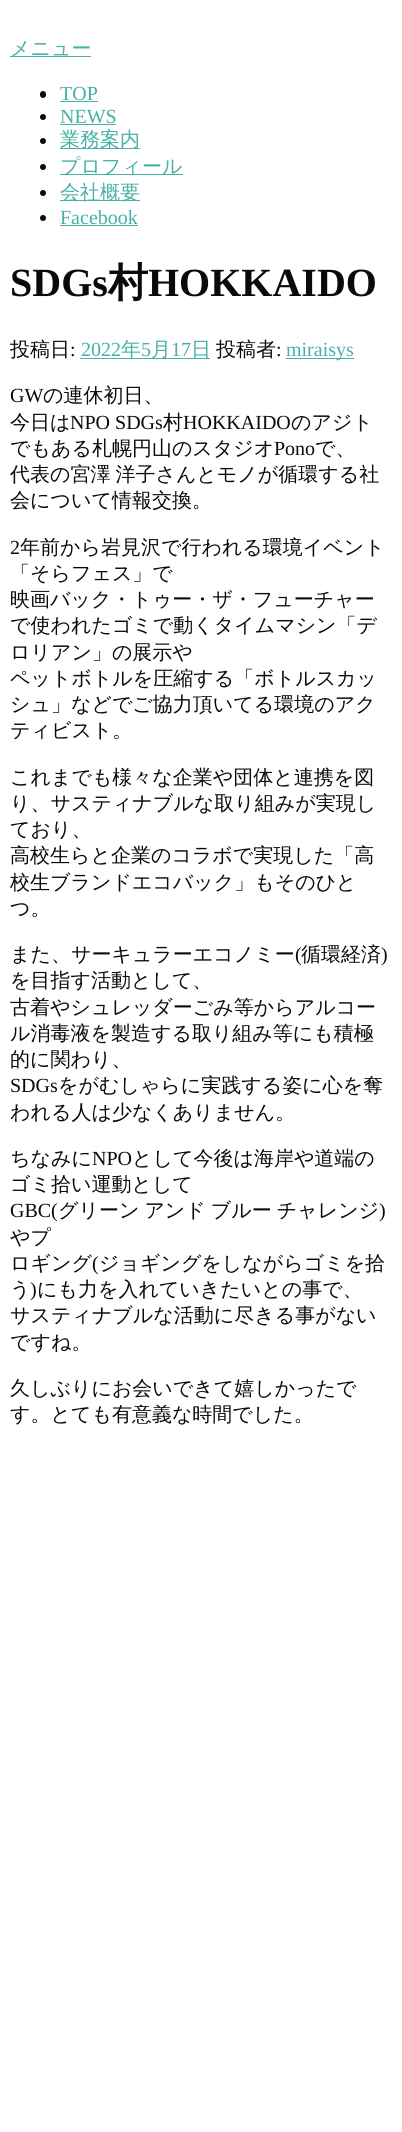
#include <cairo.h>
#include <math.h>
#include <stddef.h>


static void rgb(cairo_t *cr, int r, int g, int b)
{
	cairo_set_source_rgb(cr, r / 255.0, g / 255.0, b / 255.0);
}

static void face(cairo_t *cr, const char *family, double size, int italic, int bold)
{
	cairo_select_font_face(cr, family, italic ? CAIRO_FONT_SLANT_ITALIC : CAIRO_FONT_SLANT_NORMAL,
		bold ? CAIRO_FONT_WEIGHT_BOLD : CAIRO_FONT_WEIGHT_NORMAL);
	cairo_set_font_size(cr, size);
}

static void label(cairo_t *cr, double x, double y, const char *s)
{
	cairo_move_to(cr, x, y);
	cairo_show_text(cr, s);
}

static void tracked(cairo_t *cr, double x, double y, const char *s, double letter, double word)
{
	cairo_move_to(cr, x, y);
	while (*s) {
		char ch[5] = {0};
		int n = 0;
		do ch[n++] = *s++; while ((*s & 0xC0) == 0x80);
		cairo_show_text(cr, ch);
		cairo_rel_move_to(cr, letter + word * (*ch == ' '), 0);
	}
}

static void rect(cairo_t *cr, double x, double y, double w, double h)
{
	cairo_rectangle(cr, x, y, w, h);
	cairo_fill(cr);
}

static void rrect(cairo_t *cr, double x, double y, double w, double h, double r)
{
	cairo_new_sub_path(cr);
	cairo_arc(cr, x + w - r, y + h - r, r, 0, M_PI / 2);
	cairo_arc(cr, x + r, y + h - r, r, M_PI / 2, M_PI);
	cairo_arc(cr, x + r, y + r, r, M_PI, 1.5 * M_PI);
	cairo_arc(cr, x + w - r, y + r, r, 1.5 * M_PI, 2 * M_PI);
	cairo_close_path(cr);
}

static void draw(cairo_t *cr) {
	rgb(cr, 255, 255, 255);
	cairo_paint(cr);
	rgb(cr, 70, 177, 164);
	rect(cr, 10, 56, 81, 1);
	face(cr, "WenQuanYi Zen Hei Medium", 20, 0, 0);
	label(cr, 10, 55, "メニュー");
	rgb(cr, 10, 10, 10);
	rrect(cr, 40, 91, 6, 7, 3);
	cairo_fill(cr);
	face(cr, "Liberation Serif", 20, 0, 0);
	rgb(cr, 70, 177, 164);
	label(cr, 60, 100, "TOP");
	rect(cr, 60, 101, 38, 1);
	rgb(cr, 10, 10, 10);
	cairo_new_path(cr);
	cairo_arc(cr, 43, 117, 3, 0, 2 * M_PI);
	cairo_fill(cr);
	rgb(cr, 70, 177, 164);
	label(cr, 60, 123, "NEWS");
	rect(cr, 60, 124, 56, 1);
	rgb(cr, 10, 10, 10);
	cairo_new_path(cr);
	cairo_arc(cr, 43, 141, 3, 0, 2 * M_PI);
	cairo_fill(cr);
	rgb(cr, 70, 177, 164);
	rect(cr, 60, 148, 80, 1);
	face(cr, "WenQuanYi Zen Hei Medium", 20, 0, 0);
	label(cr, 60, 146, "業務案内");
	rgb(cr, 10, 10, 10);
	cairo_new_path(cr);
	cairo_arc(cr, 43, 167, 3, 0, 2 * M_PI);
	cairo_fill(cr);
	rgb(cr, 70, 177, 164);
	rect(cr, 60, 174, 123, 1);
	label(cr, 60, 173, "プロフィール");
	rgb(cr, 10, 10, 10);
	cairo_new_path(cr);
	cairo_arc(cr, 43, 193, 3, 0, 2 * M_PI);
	cairo_fill(cr);
	rgb(cr, 70, 177, 164);
	rect(cr, 60, 200, 80, 1);
	label(cr, 60, 199, "会社概要");
	rgb(cr, 10, 10, 10);
	cairo_new_path(cr);
	cairo_arc(cr, 43, 218, 3, 0, 2 * M_PI);
	cairo_fill(cr);
	face(cr, "Liberation Serif", 20, 0, 0);
	rgb(cr, 70, 177, 164);
	label(cr, 60, 224, "Facebook");
	rect(cr, 60, 225, 78, 1);
	face(cr, "Liberation Serif", 40, 0, 1);
	rgb(cr, 10, 10, 10);
	label(cr, 10, 296, "SDGs");
	face(cr, "WenQuanYi Zen Hei", 40, 0, 1);
	label(cr, 108, 296, "村");
	face(cr, "Liberation Serif", 40, 0, 1);
	label(cr, 148, 296, "HOKKAIDO");
	face(cr, "WenQuanYi Zen Hei Medium", 20, 0, 0);
	label(cr, 10, 356, "投稿日");
	face(cr, "Liberation Serif", 20, 0, 0);
	label(cr, 70, 356, ":");
	rgb(cr, 70, 177, 164);
	label(cr, 81, 356, "2022");
	rect(cr, 80, 358, 130, 1);
	face(cr, "WenQuanYi Zen Hei Medium", 20, 0, 0);
	label(cr, 121, 356, "年");
	face(cr, "Liberation Serif", 20, 0, 0);
	label(cr, 141, 356, "5");
	face(cr, "WenQuanYi Zen Hei Medium", 20, 0, 0);
	label(cr, 151, 356, "月");
	face(cr, "Liberation Serif", 20, 0, 0);
	label(cr, 171, 356, "17");
	face(cr, "WenQuanYi Zen Hei Medium", 20, 0, 0);
	label(cr, 191, 356, "日");
	rgb(cr, 10, 10, 10);
	label(cr, 216, 356, "投稿者");
	face(cr, "Liberation Serif", 20, 0, 0);
	label(cr, 276, 356, ":");
	rgb(cr, 70, 177, 164);
	rect(cr, 286, 358, 68, 1);
	label(cr, 286, 356, "miraisys");
	rgb(cr, 10, 10, 10);
	label(cr, 10, 402, "GW");
	face(cr, "WenQuanYi Zen Hei Medium", 20, 0, 0);
	label(cr, 43, 402, "の連休初日、");
	label(cr, 10, 429, "今日は");
	face(cr, "Liberation Serif", 20, 0, 0);
	label(cr, 70, 429, "NPO SDGs");
	face(cr, "WenQuanYi Zen Hei Medium", 20, 0, 0);
	label(cr, 163, 429, "村");
	face(cr, "Liberation Serif", 20, 0, 0);
	label(cr, 183, 429, "HOKKAIDO");
	face(cr, "WenQuanYi Zen Hei Medium", 20, 0, 0);
	label(cr, 291, 429, "のアジト");
	label(cr, 10, 455, "でもある札幌円山のスタジオ");
	face(cr, "Liberation Serif", 20, 0, 0);
	label(cr, 274, 455, "Pono");
	face(cr, "WenQuanYi Zen Hei Medium", 20, 0, 0);
	label(cr, 315, 455, "で、");
	tracked(cr, 10, 481, "代表の宮澤 洋子さんとモノが循環する社", 0, -1);
	label(cr, 10, 507, "会について情報交換。");
	face(cr, "Liberation Serif", 20, 0, 0);
	label(cr, 10, 554, "2");
	face(cr, "WenQuanYi Zen Hei Medium", 20, 0, 0);
	label(cr, 20, 554, "年前から岩見沢で行われる環境イベント");
	label(cr, 10, 580, "「そらフェス」で");
	label(cr, 10, 606, "映画バック・トゥー・ザ・フューチャー");
	label(cr, 10, 632, "で使われたゴミで動くタイムマシン「デ");
	label(cr, 10, 659, "ロリアン」の展示や");
	label(cr, 10, 685, "ペットボトルを圧縮する「ボトルスカッ");
	label(cr, 10, 711, "シュ」などでご協力頂いてる環境のアク");
	label(cr, 10, 737, "ティビスト。");
	label(cr, 10, 784, "これまでも様々な企業や団体と連携を図");
	label(cr, 10, 810, "り、サスティナブルな取り組みが実現し");
	label(cr, 10, 836, "ており、");
	label(cr, 10, 862, "高校生らと企業のコラボで実現した「高");
	label(cr, 10, 889, "校生ブランドエコバック」もそのひと");
	label(cr, 10, 915, "つ。");
	label(cr, 10, 961, "また、サーキュラーエコノミー");
	face(cr, "Liberation Serif", 20, 0, 0);
	label(cr, 295, 961, "(");
	face(cr, "WenQuanYi Zen Hei Medium", 20, 0, 0);
	label(cr, 301, 961, "循環経済");
	face(cr, "Liberation Serif", 20, 0, 0);
	label(cr, 381, 961, ")");
	face(cr, "WenQuanYi Zen Hei Medium", 20, 0, 0);
	label(cr, 10, 987, "を目指す活動として、");
	label(cr, 10, 1014, "古着やシュレッダーごみ等からアルコー");
	label(cr, 10, 1040, "ル消毒液を製造する取り組み等にも積極");
	label(cr, 10, 1066, "的に関わり、");
	face(cr, "Liberation Serif", 20, 0, 0);
	label(cr, 10, 1092, "SDGs");
	face(cr, "WenQuanYi Zen Hei Medium", 20, 0, 0);
	label(cr, 58, 1092, "をがむしゃらに実践する姿に心を奪");
	label(cr, 10, 1119, "われる人は少なくありません。");
	label(cr, 10, 1165, "ちなみに");
	face(cr, "Liberation Serif", 20, 0, 0);
	label(cr, 92, 1165, "NPO");
	face(cr, "WenQuanYi Zen Hei Medium", 20, 0, 0);
	label(cr, 132, 1165, "として今後は海岸や道端の");
	label(cr, 10, 1191, "ゴミ拾い運動として");
	face(cr, "Liberation Serif", 20, 0, 0);
	label(cr, 10, 1217, "GBC(");
	face(cr, "WenQuanYi Zen Hei Medium", 20, 0, 0);
	tracked(cr, 58, 1217, "グリーン アンド ブルー チャレンジ", 0, -1);
	face(cr, "Liberation Serif", 20, 0, 0);
	label(cr, 379, 1217, ")");
	face(cr, "WenQuanYi Zen Hei Medium", 20, 0, 0);
	label(cr, 10, 1244, "やプ");
	label(cr, 10, 1270, "ロギング");
	face(cr, "Liberation Serif", 20, 0, 0);
	label(cr, 92, 1270, "(");
	face(cr, "WenQuanYi Zen Hei Medium", 20, 0, 0);
	label(cr, 99, 1270, "ジョギングをしながらゴミを拾");
	label(cr, 10, 1296, "う");
	face(cr, "Liberation Serif", 20, 0, 0);
	label(cr, 30, 1296, ")");
	face(cr, "WenQuanYi Zen Hei Medium", 20, 0, 0);
	label(cr, 37, 1296, "にも力を入れていきたいとの事で、");
	label(cr, 10, 1322, "サスティナブルな活動に尽きる事がない");
	label(cr, 10, 1349, "ですね。");
	label(cr, 10, 1395, "久しぶりにお会いできて嬉しかったで");
	label(cr, 10, 1421, "す。とても有意義な時間でした。");
}

int main(void) {
	cairo_surface_t *surface = cairo_image_surface_create(CAIRO_FORMAT_RGB24, 402, 2132);
	cairo_t *cr = cairo_create(surface);
	cairo_font_options_t *options = cairo_font_options_create();
	cairo_font_options_set_hint_metrics(options, CAIRO_HINT_METRICS_OFF);
	cairo_font_options_set_hint_style(options, CAIRO_HINT_STYLE_NONE);
	cairo_set_font_options(cr, options);
	cairo_set_miter_limit(cr, 4);
	draw(cr);
	cairo_surface_write_to_png(surface, "render.png");
	cairo_font_options_destroy(options);
	cairo_destroy(cr);
	cairo_surface_destroy(surface);
	return 0;
}
